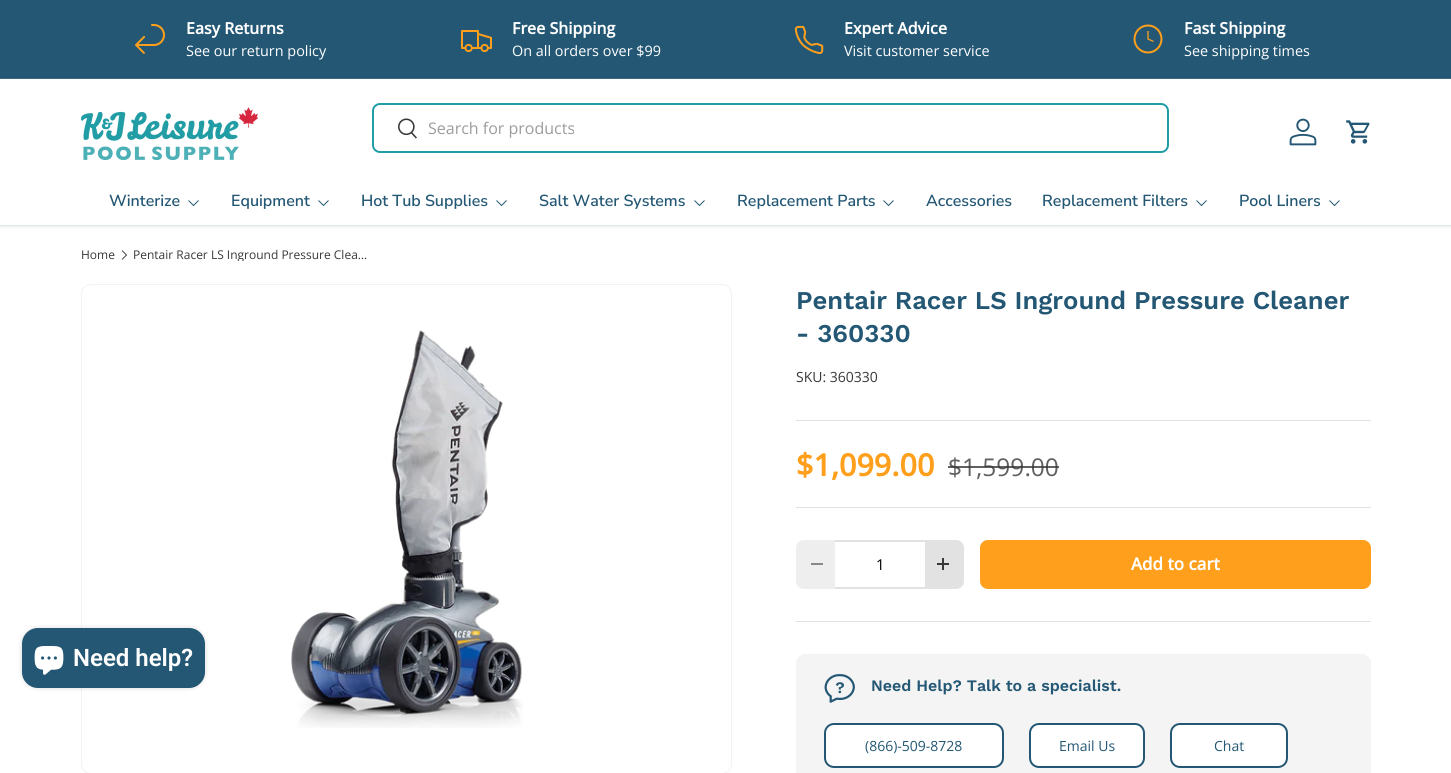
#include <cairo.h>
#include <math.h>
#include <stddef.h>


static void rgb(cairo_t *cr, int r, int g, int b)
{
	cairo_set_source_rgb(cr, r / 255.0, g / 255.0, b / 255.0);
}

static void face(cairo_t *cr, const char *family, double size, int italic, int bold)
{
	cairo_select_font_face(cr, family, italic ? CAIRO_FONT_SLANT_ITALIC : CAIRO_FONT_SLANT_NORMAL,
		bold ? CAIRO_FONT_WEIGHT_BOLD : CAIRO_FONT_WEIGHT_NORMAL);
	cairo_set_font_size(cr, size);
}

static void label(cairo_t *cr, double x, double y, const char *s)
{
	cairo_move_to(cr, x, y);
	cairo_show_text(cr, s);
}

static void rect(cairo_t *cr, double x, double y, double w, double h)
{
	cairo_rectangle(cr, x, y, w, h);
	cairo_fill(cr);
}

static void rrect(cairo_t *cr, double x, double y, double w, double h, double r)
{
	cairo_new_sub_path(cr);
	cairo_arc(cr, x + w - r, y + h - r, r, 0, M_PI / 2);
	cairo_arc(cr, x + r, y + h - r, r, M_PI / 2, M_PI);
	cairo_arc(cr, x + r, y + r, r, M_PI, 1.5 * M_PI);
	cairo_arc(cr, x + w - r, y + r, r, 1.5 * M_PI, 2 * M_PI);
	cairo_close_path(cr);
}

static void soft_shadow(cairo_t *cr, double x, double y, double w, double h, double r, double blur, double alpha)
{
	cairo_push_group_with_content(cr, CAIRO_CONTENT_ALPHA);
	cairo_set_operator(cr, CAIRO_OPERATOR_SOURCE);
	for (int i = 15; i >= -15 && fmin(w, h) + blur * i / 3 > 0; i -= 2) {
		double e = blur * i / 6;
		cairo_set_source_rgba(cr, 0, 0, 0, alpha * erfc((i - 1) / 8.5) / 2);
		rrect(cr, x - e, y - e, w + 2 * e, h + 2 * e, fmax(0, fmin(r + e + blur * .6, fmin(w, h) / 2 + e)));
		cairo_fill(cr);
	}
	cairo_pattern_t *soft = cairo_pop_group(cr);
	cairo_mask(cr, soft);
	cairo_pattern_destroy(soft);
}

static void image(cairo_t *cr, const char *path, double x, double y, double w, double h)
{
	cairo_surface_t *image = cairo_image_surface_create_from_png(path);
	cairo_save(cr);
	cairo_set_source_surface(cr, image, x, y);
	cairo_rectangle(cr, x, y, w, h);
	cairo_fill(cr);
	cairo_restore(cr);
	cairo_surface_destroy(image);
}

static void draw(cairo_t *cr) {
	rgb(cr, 255, 255, 255);
	cairo_paint(cr);
	rgb(cr, 35, 87, 116);
	rect(cr, 0, 0, 1451, 78);
	rgb(cr, 68, 112, 137);
	rect(cr, 0, 78, 1451, 1);
	image(cr, "image0.png", 135, 24, 30, 30);
	face(cr, "Open Sans", 16, 0, 1);
	rgb(cr, 255, 255, 255);
	label(cr, 186, 34, "Easy Returns");
	face(cr, "Open Sans", 14.4, 0, 0);
	label(cr, 186, 56, "See our return policy");
	image(cr, "image1.png", 461, 30, 31, 23);
	face(cr, "Open Sans", 16, 0, 1);
	label(cr, 512, 34, "Free Shipping");
	face(cr, "Open Sans", 14.4, 0, 0);
	label(cr, 512, 56, "On all orders over $99");
	image(cr, "image2.png", 794, 25, 30, 29);
	face(cr, "Open Sans", 16, 0, 1);
	label(cr, 844, 34, "Expert Advice");
	face(cr, "Open Sans", 14.4, 0, 0);
	label(cr, 844, 56, "Visit customer service");
	cairo_new_path(cr);
	cairo_arc(cr, 1148, 39, 13.5, 0, 2 * M_PI);
	rgb(cr, 255, 159, 28);
	cairo_stroke(cr);
	cairo_new_path(cr);
	cairo_move_to(cr, 1148, 31);
	cairo_line_to(cr, 1148, 39);
	cairo_line_to(cr, 1153.5, 41.5);
	cairo_set_line_width(cr, 1.3);
	cairo_stroke(cr);
	face(cr, "Open Sans", 16, 0, 1);
	rgb(cr, 255, 255, 255);
	label(cr, 1184, 34, "Fast Shipping");
	face(cr, "Open Sans", 14.4, 0, 0);
	label(cr, 1184, 56, "See shipping times");
	cairo_save(cr);
	cairo_set_fill_rule(cr, CAIRO_FILL_RULE_EVEN_ODD);
	cairo_new_path(cr);
	cairo_move_to(cr, 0, 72);
	cairo_line_to(cr, 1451, 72);
	cairo_line_to(cr, 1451, 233);
	cairo_line_to(cr, 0, 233);
	cairo_close_path(cr);
	cairo_move_to(cr, 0, 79);
	cairo_line_to(cr, 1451, 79);
	cairo_line_to(cr, 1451, 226);
	cairo_line_to(cr, 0, 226);
	cairo_close_path(cr);
	cairo_clip(cr);
	rgb(cr, 0, 0, 0);
	soft_shadow(cr, -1, 78, 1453, 149, 0, 1.5, 0.08);
	cairo_restore(cr);
	image(cr, "image3.png", 81, 107, 178, 53);
	rrect(cr, 373, 104, 795, 48, 7);
	rgb(cr, 33, 157, 165);
	cairo_set_line_width(cr, 2);
	cairo_stroke(cr);
	rgb(cr, 255, 255, 255);
	rrect(cr, 374, 105, 793, 46, 8);
	cairo_fill(cr);
	image(cr, "image4.png", 398, 118, 19, 21);
	face(cr, "Open Sans", 16, 0, 0);
	rgb(cr, 156, 156, 156);
	label(cr, 428, 134, "Search for products");
	image(cr, "image5.png", 1289, 118, 28, 28);
	image(cr, "image6.png", 1346, 120, 24, 24);
	face(cr, "Nunito Sans SemiBold", 16, 0, 0);
	rgb(cr, 35, 87, 116);
	label(cr, 109, 206, "Winterize");
	cairo_new_path(cr);
	cairo_move_to(cr, 198.5, 200.5);
	cairo_line_to(cr, 193.5, 205.5);
	cairo_line_to(cr, 188.5, 200.5);
	cairo_set_line_width(cr, 1);
	cairo_stroke(cr);
	label(cr, 231, 206, "Equipment");
	cairo_new_path(cr);
	cairo_move_to(cr, 328.5, 200.5);
	cairo_line_to(cr, 323.5, 205.5);
	cairo_line_to(cr, 318.5, 200.5);
	cairo_stroke(cr);
	label(cr, 361, 206, "Hot Tub Supplies");
	cairo_new_path(cr);
	cairo_move_to(cr, 506.5, 200.5);
	cairo_line_to(cr, 501.5, 205.5);
	cairo_line_to(cr, 496.5, 200.5);
	cairo_stroke(cr);
	label(cr, 539, 206, "Salt Water Systems");
	cairo_new_path(cr);
	cairo_move_to(cr, 704.5, 200.5);
	cairo_line_to(cr, 699.5, 205.5);
	cairo_line_to(cr, 694.5, 200.5);
	cairo_stroke(cr);
	label(cr, 737, 206, "Replacement Parts");
	cairo_new_path(cr);
	cairo_move_to(cr, 893.5, 200.5);
	cairo_line_to(cr, 888.5, 205.5);
	cairo_line_to(cr, 883.5, 200.5);
	cairo_stroke(cr);
	label(cr, 926, 206, "Accessories");
	label(cr, 1042, 206, "Replacement Filters");
	cairo_new_path(cr);
	cairo_move_to(cr, 1206.5, 200.5);
	cairo_line_to(cr, 1201.5, 205.5);
	cairo_line_to(cr, 1196.5, 200.5);
	cairo_stroke(cr);
	label(cr, 1239, 206, "Pool Liners");
	cairo_new_path(cr);
	cairo_move_to(cr, 1339.5, 200.5);
	cairo_line_to(cr, 1334.5, 205.5);
	cairo_line_to(cr, 1329.5, 200.5);
	cairo_stroke(cr);
	rgb(cr, 222, 230, 234);
	rect(cr, 0, 225, 1451, 1);
	face(cr, "Open Sans", 12, 0, 0);
	rgb(cr, 56, 56, 56);
	label(cr, 81, 259, "Home");
	cairo_new_path(cr);
	cairo_move_to(cr, 122, 250.5);
	cairo_line_to(cr, 126.5, 255);
	cairo_line_to(cr, 122, 259.5);
	cairo_set_line_width(cr, 0.9);
	cairo_stroke(cr);
	cairo_save(cr);
	cairo_rectangle(cr, 133, 249, 240, 12);
	cairo_clip(cr);
	label(cr, 133, 259, "Pentair Racer LS Inground Pressure Clea…");
	cairo_restore(cr);
	rrect(cr, 81.5, 284.5, 650, 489, 9.5);
	rgb(cr, 242, 242, 242);
	cairo_set_line_width(cr, 1);
	cairo_stroke(cr);
	image(cr, "image7.png", 291, 322, 232, 406);
	face(cr, "Work Sans SemiBold", 25.6, 0, 0);
	rgb(cr, 35, 87, 116);
	label(cr, 796, 309, "Pentair Racer LS Inground Pressure Cleaner");
	label(cr, 796, 342, "- 360330");
	face(cr, "Open Sans", 14, 0, 0);
	rgb(cr, 56, 56, 56);
	label(cr, 796, 382, "SKU: 360330");
	rgb(cr, 225, 225, 225);
	rect(cr, 796, 420, 575, 1);
	face(cr, "Open Sans", 30.5, 0, 1);
	rgb(cr, 255, 159, 28);
	label(cr, 796, 476, "$1,099.00");
	face(cr, "Open Sans", 24.5, 0, 0);
	rgb(cr, 96, 96, 96);
	label(cr, 948, 476, "$1,599.00");
	cairo_set_source_rgba(cr, 0.22, 0.22, 0.22, 0.8);
	rect(cr, 948, 466, 111, 2);
	rgb(cr, 225, 225, 225);
	rect(cr, 796, 507, 575, 1);
	rgb(cr, 238, 238, 238);
	cairo_new_path(cr);
	cairo_move_to(cr, 804, 540);
	cairo_line_to(cr, 835, 540);
	cairo_line_to(cr, 835, 589);
	cairo_line_to(cr, 804, 589);
	cairo_curve_to(cr, 799.5, 589, 796, 585.5, 796, 581);
	cairo_line_to(cr, 796, 548);
	cairo_curve_to(cr, 796, 543.5, 799.5, 540, 804, 540);
	cairo_close_path(cr);
	cairo_fill(cr);
	rgb(cr, 136, 136, 136);
	rect(cr, 811, 563, 12, 2);
	rgb(cr, 226, 226, 226);
	rect(cr, 835, 587, 90, 2);
	rect(cr, 835, 540, 90, 2);
	face(cr, "Open Sans", 15, 0, 0);
	rgb(cr, 0, 0, 0);
	label(cr, 876, 570, "1");
	rgb(cr, 226, 226, 226);
	cairo_new_path(cr);
	cairo_move_to(cr, 925, 540);
	cairo_line_to(cr, 956, 540);
	cairo_curve_to(cr, 960.5, 540, 964, 543.5, 964, 548);
	cairo_line_to(cr, 964, 581);
	cairo_curve_to(cr, 964, 585.5, 960.5, 589, 956, 589);
	cairo_line_to(cr, 925, 589);
	cairo_close_path(cr);
	cairo_fill(cr);
	rgb(cr, 56, 56, 56);
	rect(cr, 937, 563, 12, 2);
	rect(cr, 942, 558, 2, 12);
	rgb(cr, 255, 159, 28);
	rrect(cr, 980, 540, 391, 49, 8);
	cairo_fill(cr);
	face(cr, "Open Sans", 17, 0, 1);
	rgb(cr, 255, 255, 255);
	label(cr, 1131, 570, "Add to cart");
	rgb(cr, 225, 225, 225);
	rect(cr, 796, 621, 575, 1);
	rgb(cr, 244, 244, 244);
	rrect(cr, 796, 654, 575, 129, 10);
	cairo_fill(cr);
	cairo_new_path(cr);
	cairo_move_to(cr, 806, 654);
	cairo_line_to(cr, 1361, 654);
	cairo_curve_to(cr, 1366.5, 654, 1371, 658.5, 1371, 664);
	cairo_line_to(cr, 1371, 723);
	cairo_line_to(cr, 796, 723);
	cairo_line_to(cr, 796, 664);
	cairo_curve_to(cr, 796, 658.5, 800.5, 654, 806, 654);
	cairo_close_path(cr);
	cairo_fill(cr);
	image(cr, "image8.png", 824, 674, 31, 29);
	face(cr, "Work Sans SemiBold", 16, 0, 0);
	rgb(cr, 35, 87, 116);
	label(cr, 871, 691, "Need Help? Talk to a specialist.");
	rgb(cr, 255, 255, 255);
	rrect(cr, 825, 724, 178, 43, 9);
	cairo_fill_preserve(cr);
	rgb(cr, 35, 87, 116);
	cairo_set_line_width(cr, 2);
	cairo_stroke(cr);
	face(cr, "Open Sans", 14, 0, 0);
	label(cr, 865, 751, "(866)-509-8728");
	rgb(cr, 255, 255, 255);
	rrect(cr, 1030, 724, 114, 43, 9);
	cairo_fill_preserve(cr);
	rgb(cr, 35, 87, 116);
	cairo_stroke(cr);
	label(cr, 1059, 751, "Email Us");
	rgb(cr, 255, 255, 255);
	rrect(cr, 1171, 724, 116, 43, 9);
	cairo_fill_preserve(cr);
	rgb(cr, 35, 87, 116);
	cairo_stroke(cr);
	label(cr, 1214, 751, "Chat");
	rgb(cr, 0, 0, 0);
	soft_shadow(cr, 22, 628, 183, 60, 16, 2.5, 0.15);
	rgb(cr, 35, 87, 116);
	rrect(cr, 22, 628, 183, 60, 16);
	cairo_fill(cr);
	image(cr, "image9.png", 34, 646, 30, 29);
	face(cr, "Roboto SemiBold", 24, 0, 0);
	rgb(cr, 255, 255, 255);
	label(cr, 73, 666, "Need help?");
}

int main(void) {
	cairo_surface_t *surface = cairo_image_surface_create(CAIRO_FORMAT_RGB24, 1451, 773);
	cairo_t *cr = cairo_create(surface);
	cairo_font_options_t *options = cairo_font_options_create();
	cairo_font_options_set_hint_metrics(options, CAIRO_HINT_METRICS_OFF);
	cairo_font_options_set_hint_style(options, CAIRO_HINT_STYLE_NONE);
	cairo_set_font_options(cr, options);
	cairo_set_miter_limit(cr, 4);
	draw(cr);
	cairo_surface_write_to_png(surface, "render.png");
	cairo_font_options_destroy(options);
	cairo_destroy(cr);
	cairo_surface_destroy(surface);
	return 0;
}
